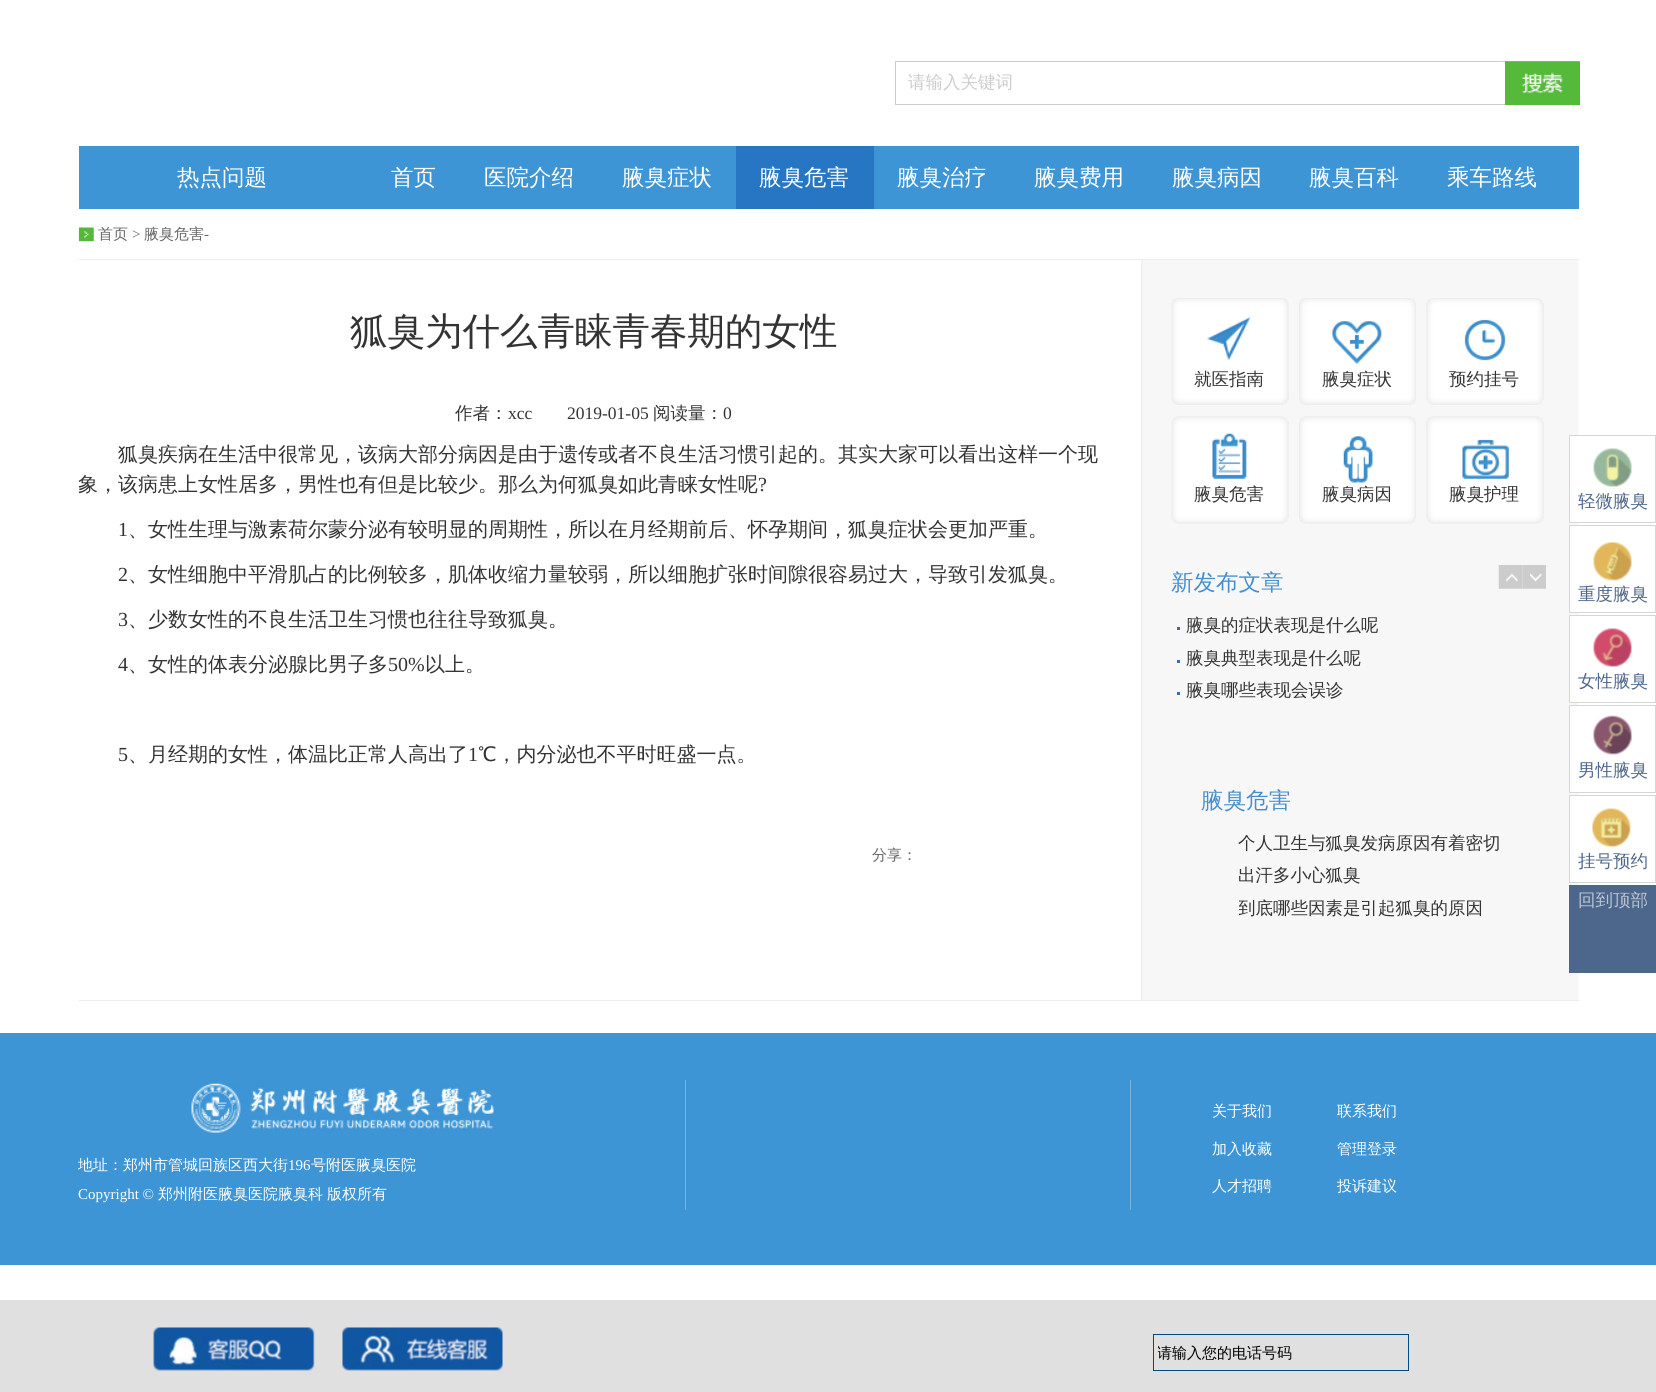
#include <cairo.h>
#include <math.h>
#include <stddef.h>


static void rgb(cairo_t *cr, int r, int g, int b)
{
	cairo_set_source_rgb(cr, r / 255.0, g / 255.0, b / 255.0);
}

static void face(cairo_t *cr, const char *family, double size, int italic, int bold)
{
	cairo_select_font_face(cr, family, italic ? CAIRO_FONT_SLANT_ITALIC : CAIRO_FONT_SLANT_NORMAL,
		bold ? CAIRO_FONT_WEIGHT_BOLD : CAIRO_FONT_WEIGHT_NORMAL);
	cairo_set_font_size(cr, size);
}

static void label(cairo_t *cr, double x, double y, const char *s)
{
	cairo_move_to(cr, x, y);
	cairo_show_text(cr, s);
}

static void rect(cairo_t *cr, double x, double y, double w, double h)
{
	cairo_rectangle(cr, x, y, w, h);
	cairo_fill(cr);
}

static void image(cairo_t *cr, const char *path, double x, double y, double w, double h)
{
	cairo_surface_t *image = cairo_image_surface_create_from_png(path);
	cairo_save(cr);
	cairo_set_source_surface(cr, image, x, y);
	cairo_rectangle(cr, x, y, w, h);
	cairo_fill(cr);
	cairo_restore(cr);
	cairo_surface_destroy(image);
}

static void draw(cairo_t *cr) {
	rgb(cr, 255, 255, 255);
	cairo_paint(cr);
	cairo_rectangle(cr, 895.5, 61.5, 683, 43);
	rgb(cr, 205, 205, 205);
	cairo_set_line_width(cr, 1);
	cairo_stroke(cr);
	face(cr, "WenQuanYi Zen Hei Medium", 17.5, 0, 0);
	rgb(cr, 204, 204, 204);
	label(cr, 908, 88, "请输入关键词");
	image(cr, "image0.png", 1505, 61, 75, 44);
	rgb(cr, 61, 149, 213);
	rect(cr, 79, 146, 1500, 63);
	face(cr, "WenQuanYi Zen Hei Medium", 22.5, 0, 0);
	rgb(cr, 255, 255, 255);
	label(cr, 177, 185, "热点问题");
	label(cr, 391, 185, "首页");
	label(cr, 484, 185, "医院介绍");
	label(cr, 622, 185, "腋臭症状");
	rgb(cr, 38, 118, 195);
	rect(cr, 736, 146, 138, 63);
	rgb(cr, 255, 255, 255);
	label(cr, 759, 185, "腋臭危害");
	label(cr, 897, 185, "腋臭治疗");
	label(cr, 1034, 185, "腋臭费用");
	label(cr, 1172, 185, "腋臭病因");
	label(cr, 1309, 185, "腋臭百科");
	label(cr, 1447, 185, "乘车路线");
	image(cr, "image1.png", 78, 227, 16, 15);
	face(cr, "WenQuanYi Zen Hei Medium", 15, 0, 0);
	rgb(cr, 102, 102, 102);
	label(cr, 98, 239, "首页");
	face(cr, "Liberation Serif", 15, 0, 0);
	label(cr, 132, 239, ">");
	face(cr, "WenQuanYi Zen Hei Medium", 15, 0, 0);
	label(cr, 144, 239, "腋臭危害");
	face(cr, "Liberation Serif", 15, 0, 0);
	label(cr, 204, 239, "-");
	image(cr, "image2.png", 1141, 260, 438, 740);
	rgb(cr, 237, 237, 237);
	rect(cr, 79, 259, 1500, 1);
	rect(cr, 79, 1000, 1500, 1);
	face(cr, "WenQuanYi Zen Hei Medium", 37.5, 0, 0);
	rgb(cr, 51, 51, 51);
	label(cr, 350, 344, "狐臭为什么青睐青春期的女性");
	face(cr, "WenQuanYi Zen Hei Medium", 17.5, 0, 0);
	label(cr, 455, 419, "作者：");
	face(cr, "Liberation Serif", 17.5, 0, 0);
	label(cr, 508, 419, "xcc");
	label(cr, 567, 419, "2019-01-05");
	face(cr, "WenQuanYi Zen Hei Medium", 17.5, 0, 0);
	label(cr, 653, 419, "阅读量：");
	face(cr, "Liberation Serif", 17.5, 0, 0);
	label(cr, 723, 419, "0");
	face(cr, "WenQuanYi Zen Hei Medium", 20, 0, 0);
	label(cr, 118, 461, "狐臭疾病在生活中很常见，该病大部分病因是由于遗传或者不良生活习惯引起的。其实大家可以看出这样一个现");
	label(cr, 78, 491, "象，该病患上女性居多，男性也有但是比较少。那么为何狐臭如此青睐女性呢");
	face(cr, "Liberation Serif", 20, 0, 0);
	label(cr, 758, 491, "?");
	label(cr, 118, 536, "1");
	face(cr, "WenQuanYi Zen Hei Medium", 20, 0, 0);
	label(cr, 128, 536, "、女性生理与激素荷尔蒙分泌有较明显的周期性，所以在月经期前后、怀孕期间，狐臭症状会更加严重。");
	face(cr, "Liberation Serif", 20, 0, 0);
	label(cr, 118, 581, "2");
	face(cr, "WenQuanYi Zen Hei Medium", 20, 0, 0);
	label(cr, 128, 581, "、女性细胞中平滑肌占的比例较多，肌体收缩力量较弱，所以细胞扩张时间隙很容易过大，导致引发狐臭。");
	face(cr, "Liberation Serif", 20, 0, 0);
	label(cr, 118, 626, "3");
	face(cr, "WenQuanYi Zen Hei Medium", 20, 0, 0);
	label(cr, 128, 626, "、少数女性的不良生活卫生习惯也往往导致狐臭。");
	face(cr, "Liberation Serif", 20, 0, 0);
	label(cr, 118, 671, "4");
	face(cr, "WenQuanYi Zen Hei Medium", 20, 0, 0);
	label(cr, 128, 671, "、女性的体表分泌腺比男子多");
	face(cr, "Liberation Serif", 20, 0, 0);
	label(cr, 388, 671, "50%");
	face(cr, "WenQuanYi Zen Hei Medium", 20, 0, 0);
	label(cr, 425, 671, "以上。");
	face(cr, "Liberation Serif", 20, 0, 0);
	label(cr, 118, 761, "5");
	face(cr, "WenQuanYi Zen Hei Medium", 20, 0, 0);
	label(cr, 128, 761, "、月经期的女性，体温比正常人高出了");
	face(cr, "Liberation Serif", 20, 0, 0);
	label(cr, 468, 761, "1");
	face(cr, "WenQuanYi Zen Hei Medium", 20, 0, 0);
	label(cr, 478, 761, "℃，内分泌也不平时旺盛一点。");
	face(cr, "WenQuanYi Zen Hei Medium", 15, 0, 0);
	rgb(cr, 102, 102, 102);
	label(cr, 872, 860, "分享：");
	image(cr, "image3.png", 1171, 298, 118, 107);
	face(cr, "WenQuanYi Zen Hei Medium", 17.5, 0, 0);
	rgb(cr, 51, 51, 51);
	label(cr, 1194, 385, "就医指南");
	image(cr, "image4.png", 1299, 298, 117, 107);
	label(cr, 1322, 385, "腋臭症状");
	image(cr, "image5.png", 1426, 298, 118, 107);
	label(cr, 1449, 385, "预约挂号");
	image(cr, "image6.png", 1171, 416, 118, 108);
	label(cr, 1194, 500, "腋臭危害");
	image(cr, "image7.png", 1299, 416, 117, 108);
	label(cr, 1322, 500, "腋臭病因");
	image(cr, "image8.png", 1426, 416, 118, 108);
	label(cr, 1449, 500, "腋臭护理");
	face(cr, "WenQuanYi Zen Hei Medium", 22.5, 0, 0);
	rgb(cr, 69, 143, 206);
	label(cr, 1171, 590, "新发布文章");
	image(cr, "image9.png", 1498, 565, 25, 24);
	image(cr, "image10.png", 1522, 565, 24, 24);
	rgb(cr, 55, 106, 178);
	rect(cr, 1177, 627, 3, 3);
	face(cr, "WenQuanYi Zen Hei Medium", 17.5, 0, 0);
	rgb(cr, 51, 51, 51);
	label(cr, 1186, 631, "腋臭的症状表现是什么呢");
	rgb(cr, 55, 106, 178);
	rect(cr, 1177, 660, 3, 3);
	rgb(cr, 51, 51, 51);
	label(cr, 1186, 664, "腋臭典型表现是什么呢");
	rgb(cr, 55, 106, 178);
	rect(cr, 1177, 692, 3, 3);
	rgb(cr, 51, 51, 51);
	label(cr, 1186, 696, "腋臭哪些表现会误诊");
	face(cr, "WenQuanYi Zen Hei Medium", 22.5, 0, 0);
	rgb(cr, 69, 143, 206);
	label(cr, 1201, 808, "腋臭危害");
	face(cr, "WenQuanYi Zen Hei Medium", 17.5, 0, 0);
	rgb(cr, 51, 51, 51);
	label(cr, 1238, 849, "个人卫生与狐臭发病原因有着密切");
	label(cr, 1238, 881, "出汗多小心狐臭");
	cairo_save(cr);
	cairo_rectangle(cr, 1239, 893, 307, 32);
	cairo_clip(cr);
	label(cr, 1238, 914, "到底哪些因素是引起狐臭的原因");
	cairo_restore(cr);
	rgb(cr, 255, 255, 255);
	rect(cr, 1570, 436, 9, 86);
	cairo_rectangle(cr, 1569.5, 435.5, 86, 87);
	rgb(cr, 212, 214, 216);
	cairo_stroke(cr);
	image(cr, "image11.png", 1593, 448, 39, 39);
	rgb(cr, 77, 102, 139);
	label(cr, 1578, 507, "轻微腋臭");
	rgb(cr, 255, 255, 255);
	rect(cr, 1570, 526, 9, 86);
	cairo_rectangle(cr, 1569.5, 525.5, 86, 87);
	rgb(cr, 212, 214, 216);
	cairo_stroke(cr);
	image(cr, "image12.png", 1593, 542, 39, 39);
	rgb(cr, 77, 102, 139);
	label(cr, 1578, 600, "重度腋臭");
	rgb(cr, 255, 255, 255);
	rect(cr, 1570, 616, 9, 86);
	cairo_rectangle(cr, 1569.5, 615.5, 86, 87);
	rgb(cr, 212, 214, 216);
	cairo_stroke(cr);
	image(cr, "image13.png", 1593, 628, 39, 39);
	rgb(cr, 77, 102, 139);
	label(cr, 1578, 687, "女性腋臭");
	rgb(cr, 255, 255, 255);
	rect(cr, 1570, 706, 9, 86);
	cairo_rectangle(cr, 1569.5, 705.5, 86, 87);
	rgb(cr, 212, 214, 216);
	cairo_stroke(cr);
	image(cr, "image14.png", 1593, 715, 39, 40);
	rgb(cr, 77, 102, 139);
	label(cr, 1578, 776, "男性腋臭");
	rgb(cr, 255, 255, 255);
	rect(cr, 1570, 796, 9, 86);
	cairo_rectangle(cr, 1569.5, 795.5, 86, 87);
	rgb(cr, 212, 214, 216);
	cairo_stroke(cr);
	image(cr, "image15.png", 1592, 808, 39, 39);
	rgb(cr, 77, 102, 139);
	label(cr, 1578, 867, "挂号预约");
	rect(cr, 1569, 885, 87, 88);
	rgb(cr, 187, 197, 211);
	label(cr, 1578, 906, "回到顶部");
	rgb(cr, 61, 149, 213);
	rect(cr, 0, 1033, 1656, 232);
	image(cr, "image16.png", 191, 1083, 303, 50);
	rgb(cr, 125, 178, 216);
	rect(cr, 685, 1080, 1, 130);
	face(cr, "WenQuanYi Zen Hei Medium", 15, 0, 0);
	rgb(cr, 255, 255, 255);
	label(cr, 78, 1170, "地址：郑州市管城回族区西大街");
	face(cr, "Liberation Serif", 15, 0, 0);
	label(cr, 288, 1170, "196");
	face(cr, "WenQuanYi Zen Hei Medium", 15, 0, 0);
	label(cr, 311, 1170, "号附医腋臭医院");
	face(cr, "Liberation Serif", 15, 0, 0);
	label(cr, 78, 1199, "Copyright ©");
	face(cr, "WenQuanYi Zen Hei Medium", 15, 0, 0);
	label(cr, 158, 1199, "郑州附医腋臭医院腋臭科");
	label(cr, 327, 1199, "版权所有");
	rgb(cr, 125, 178, 216);
	rect(cr, 1130, 1080, 1, 130);
	rgb(cr, 255, 255, 255);
	label(cr, 1212, 1116, "关于我们");
	label(cr, 1337, 1116, "联系我们");
	label(cr, 1212, 1154, "加入收藏");
	label(cr, 1337, 1154, "管理登录");
	label(cr, 1212, 1191, "人才招聘");
	label(cr, 1337, 1191, "投诉建议");
	rgb(cr, 225, 224, 225);
	rect(cr, 0, 1300, 1656, 92);
	image(cr, "image17.png", 153, 1327, 162, 44);
	image(cr, "image18.png", 342, 1327, 161, 44);
	cairo_rectangle(cr, 1153.5, 1334.5, 255, 36);
	rgb(cr, 0, 74, 131);
	cairo_stroke(cr);
	cairo_save(cr);
	cairo_rectangle(cr, 1158, 1335, 250, 35);
	cairo_clip(cr);
	rgb(cr, 0, 0, 0);
	label(cr, 1157, 1358, "请输入您的电话号码");
	cairo_restore(cr);
}

int main(void) {
	cairo_surface_t *surface = cairo_image_surface_create(CAIRO_FORMAT_RGB24, 1656, 1392);
	cairo_t *cr = cairo_create(surface);
	cairo_font_options_t *options = cairo_font_options_create();
	cairo_font_options_set_hint_metrics(options, CAIRO_HINT_METRICS_OFF);
	cairo_font_options_set_hint_style(options, CAIRO_HINT_STYLE_NONE);
	cairo_set_font_options(cr, options);
	cairo_set_miter_limit(cr, 4);
	draw(cr);
	cairo_surface_write_to_png(surface, "render.png");
	cairo_font_options_destroy(options);
	cairo_destroy(cr);
	cairo_surface_destroy(surface);
	return 0;
}
